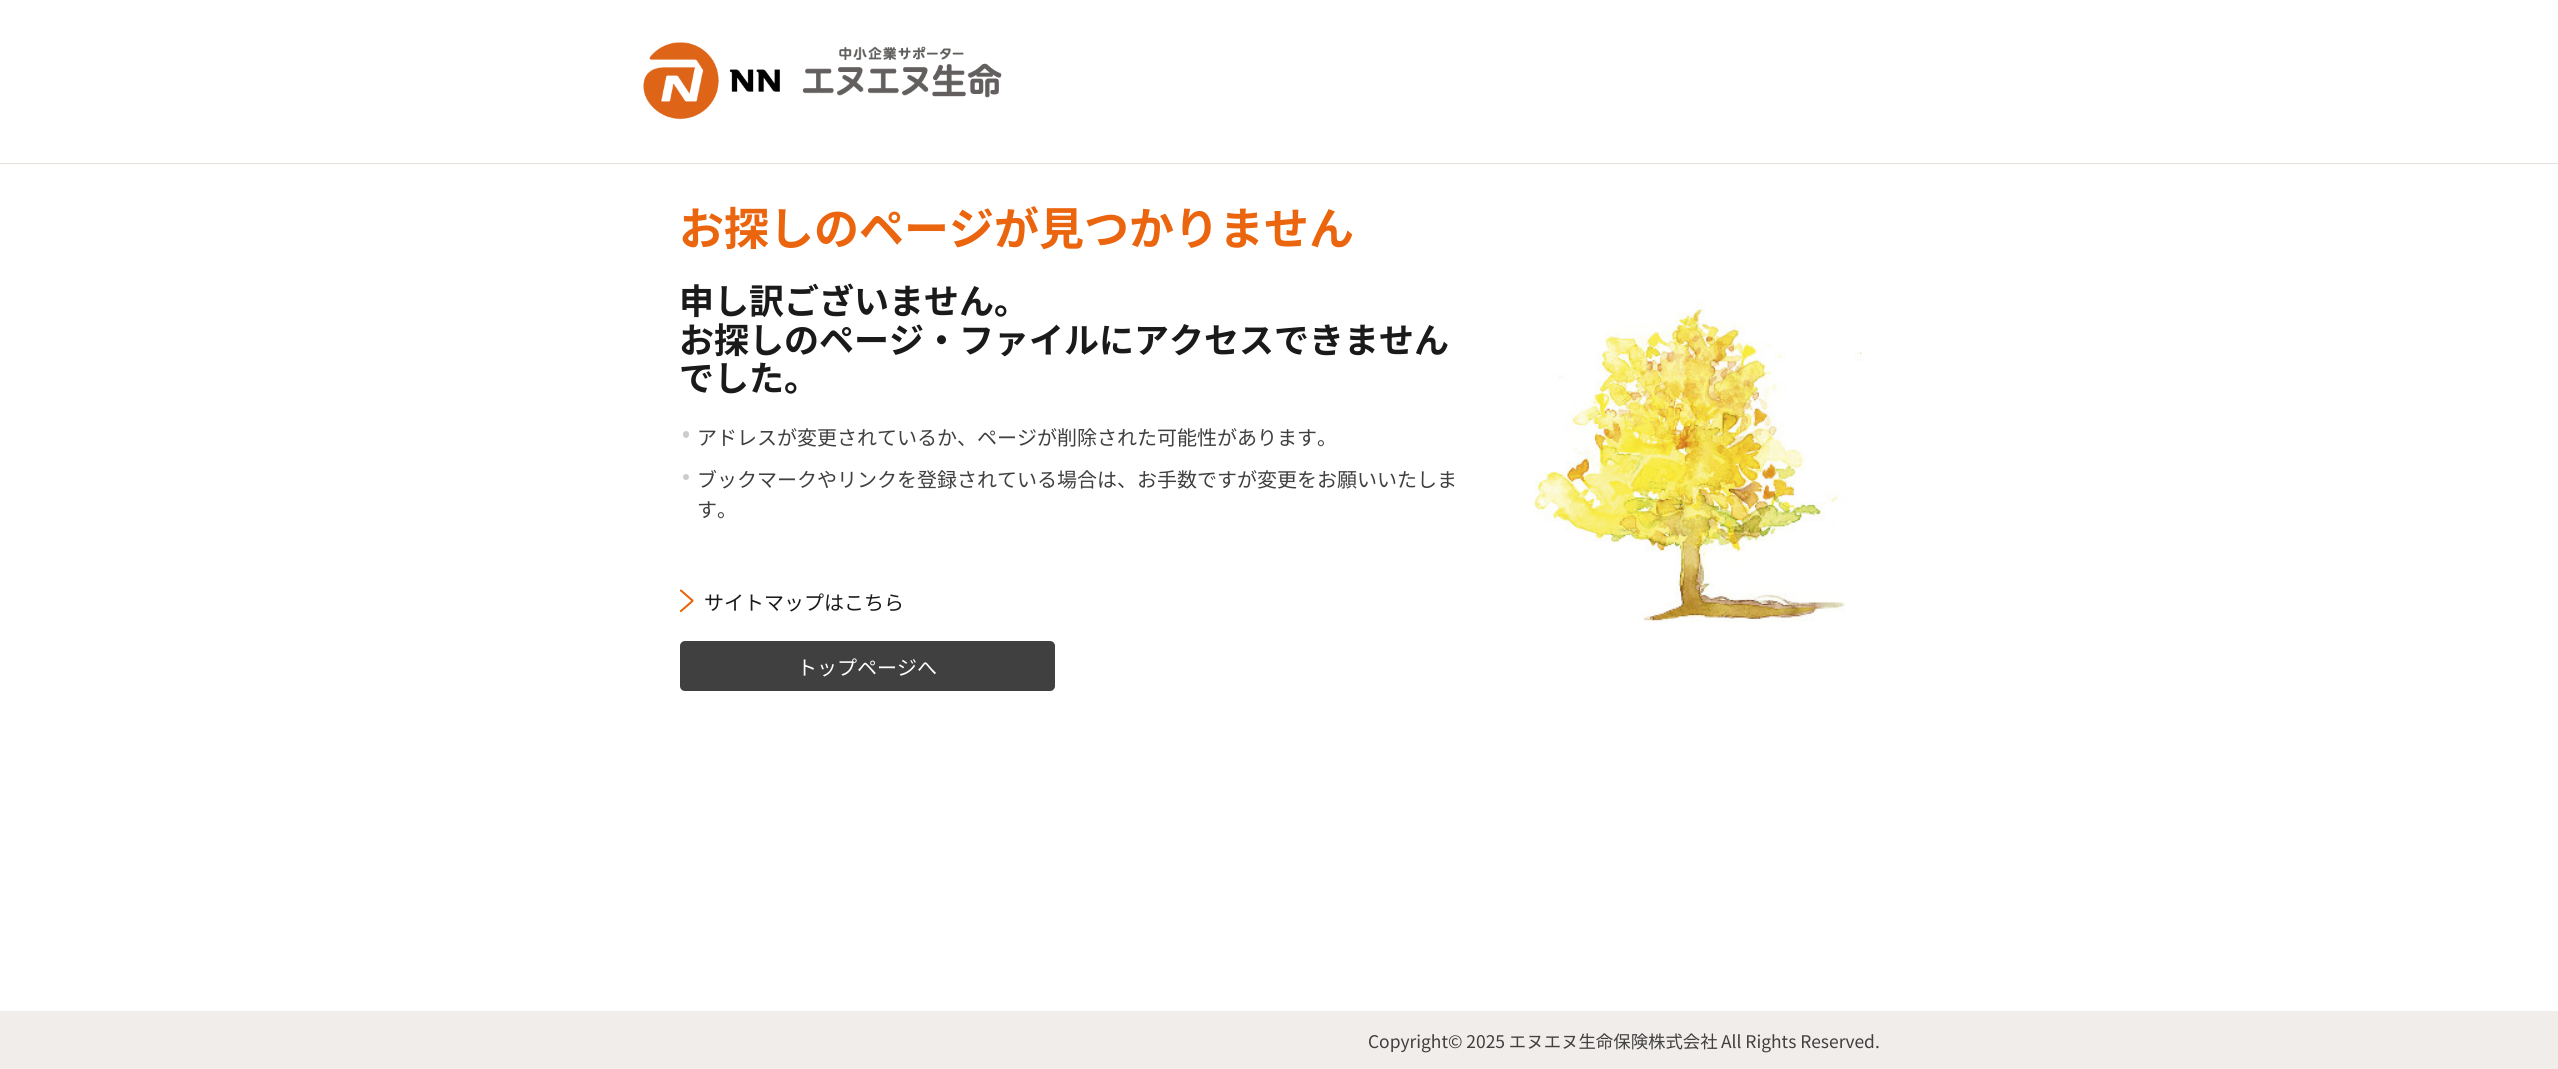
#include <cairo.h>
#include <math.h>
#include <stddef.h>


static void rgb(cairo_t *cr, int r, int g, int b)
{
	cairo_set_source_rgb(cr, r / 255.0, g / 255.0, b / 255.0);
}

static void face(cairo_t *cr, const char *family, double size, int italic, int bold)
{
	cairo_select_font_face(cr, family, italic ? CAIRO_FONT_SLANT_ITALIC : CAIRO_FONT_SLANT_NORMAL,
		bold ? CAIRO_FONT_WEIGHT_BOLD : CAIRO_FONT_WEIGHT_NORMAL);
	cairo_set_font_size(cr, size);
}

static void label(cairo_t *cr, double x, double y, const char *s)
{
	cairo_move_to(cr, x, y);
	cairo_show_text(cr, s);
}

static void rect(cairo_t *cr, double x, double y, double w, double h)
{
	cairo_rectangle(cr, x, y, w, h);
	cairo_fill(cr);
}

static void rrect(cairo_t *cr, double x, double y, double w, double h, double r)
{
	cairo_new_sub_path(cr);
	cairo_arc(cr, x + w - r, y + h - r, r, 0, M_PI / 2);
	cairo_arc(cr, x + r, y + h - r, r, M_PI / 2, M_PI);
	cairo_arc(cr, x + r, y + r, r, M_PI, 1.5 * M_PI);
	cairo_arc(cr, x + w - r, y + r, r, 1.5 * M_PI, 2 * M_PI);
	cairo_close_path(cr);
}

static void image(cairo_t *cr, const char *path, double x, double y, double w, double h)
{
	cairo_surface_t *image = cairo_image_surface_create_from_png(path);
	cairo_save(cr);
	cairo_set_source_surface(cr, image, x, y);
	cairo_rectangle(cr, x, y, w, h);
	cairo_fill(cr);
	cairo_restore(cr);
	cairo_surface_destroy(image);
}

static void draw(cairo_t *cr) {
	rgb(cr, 255, 255, 255);
	cairo_paint(cr);
	rgb(cr, 229, 222, 217);
	rect(cr, 0, 163, 2558, 1);
	image(cr, "image0.png", 643, 42, 359, 78);
	face(cr, "Noto Sans JP", 45, 0, 1);
	rgb(cr, 234, 101, 13);
	label(cr, 679, 245, "お探しのページが見つかりません");
	face(cr, "Noto Sans JP", 35, 0, 1);
	rgb(cr, 26, 26, 26);
	label(cr, 679, 314, "申し訳ございません。");
	label(cr, 679, 353, "お探しのページ・ファイルにアクセスできません");
	label(cr, 679, 391, "でした。");
	rgb(cr, 204, 204, 204);
	rrect(cr, 683, 431, 6, 7, 3);
	cairo_fill(cr);
	face(cr, "Noto Sans JP", 20, 0, 0);
	rgb(cr, 64, 64, 64);
	label(cr, 697, 445, "アドレスが変更されているか、ページが削除された可能性があります。");
	rgb(cr, 204, 204, 204);
	cairo_new_path(cr);
	cairo_arc(cr, 686, 477, 3, 0, 2 * M_PI);
	cairo_fill(cr);
	rgb(cr, 64, 64, 64);
	label(cr, 697, 487, "ブックマークやリンクを登録されている場合は、お手数ですが変更をお願いいたしま");
	label(cr, 697, 517, "す。");
	image(cr, "image1.png", 680, 589, 14, 23);
	rgb(cr, 26, 26, 26);
	label(cr, 704, 610, "サイトマップはこちら");
	rgb(cr, 64, 64, 64);
	rrect(cr, 680, 641, 375, 50, 5);
	cairo_fill(cr);
	rgb(cr, 255, 255, 255);
	label(cr, 797, 675, "トップページへ");
	image(cr, "image2.png", 1534, 301, 330, 323);
	rgb(cr, 241, 237, 235);
	rect(cr, 0, 1011, 2558, 58);
	face(cr, "Noto Sans JP", 17.4, 0, 0);
	rgb(cr, 64, 64, 64);
	label(cr, 1368, 1048, "Copyright© 2025 エヌエヌ生命保険株式会社");
	label(cr, 1721, 1048, "All Rights Reserved.");
}

int main(void) {
	cairo_surface_t *surface = cairo_image_surface_create(CAIRO_FORMAT_RGB24, 2558, 1069);
	cairo_t *cr = cairo_create(surface);
	cairo_font_options_t *options = cairo_font_options_create();
	cairo_font_options_set_hint_metrics(options, CAIRO_HINT_METRICS_OFF);
	cairo_font_options_set_hint_style(options, CAIRO_HINT_STYLE_NONE);
	cairo_set_font_options(cr, options);
	cairo_set_miter_limit(cr, 4);
	draw(cr);
	cairo_surface_write_to_png(surface, "render.png");
	cairo_font_options_destroy(options);
	cairo_destroy(cr);
	cairo_surface_destroy(surface);
	return 0;
}
